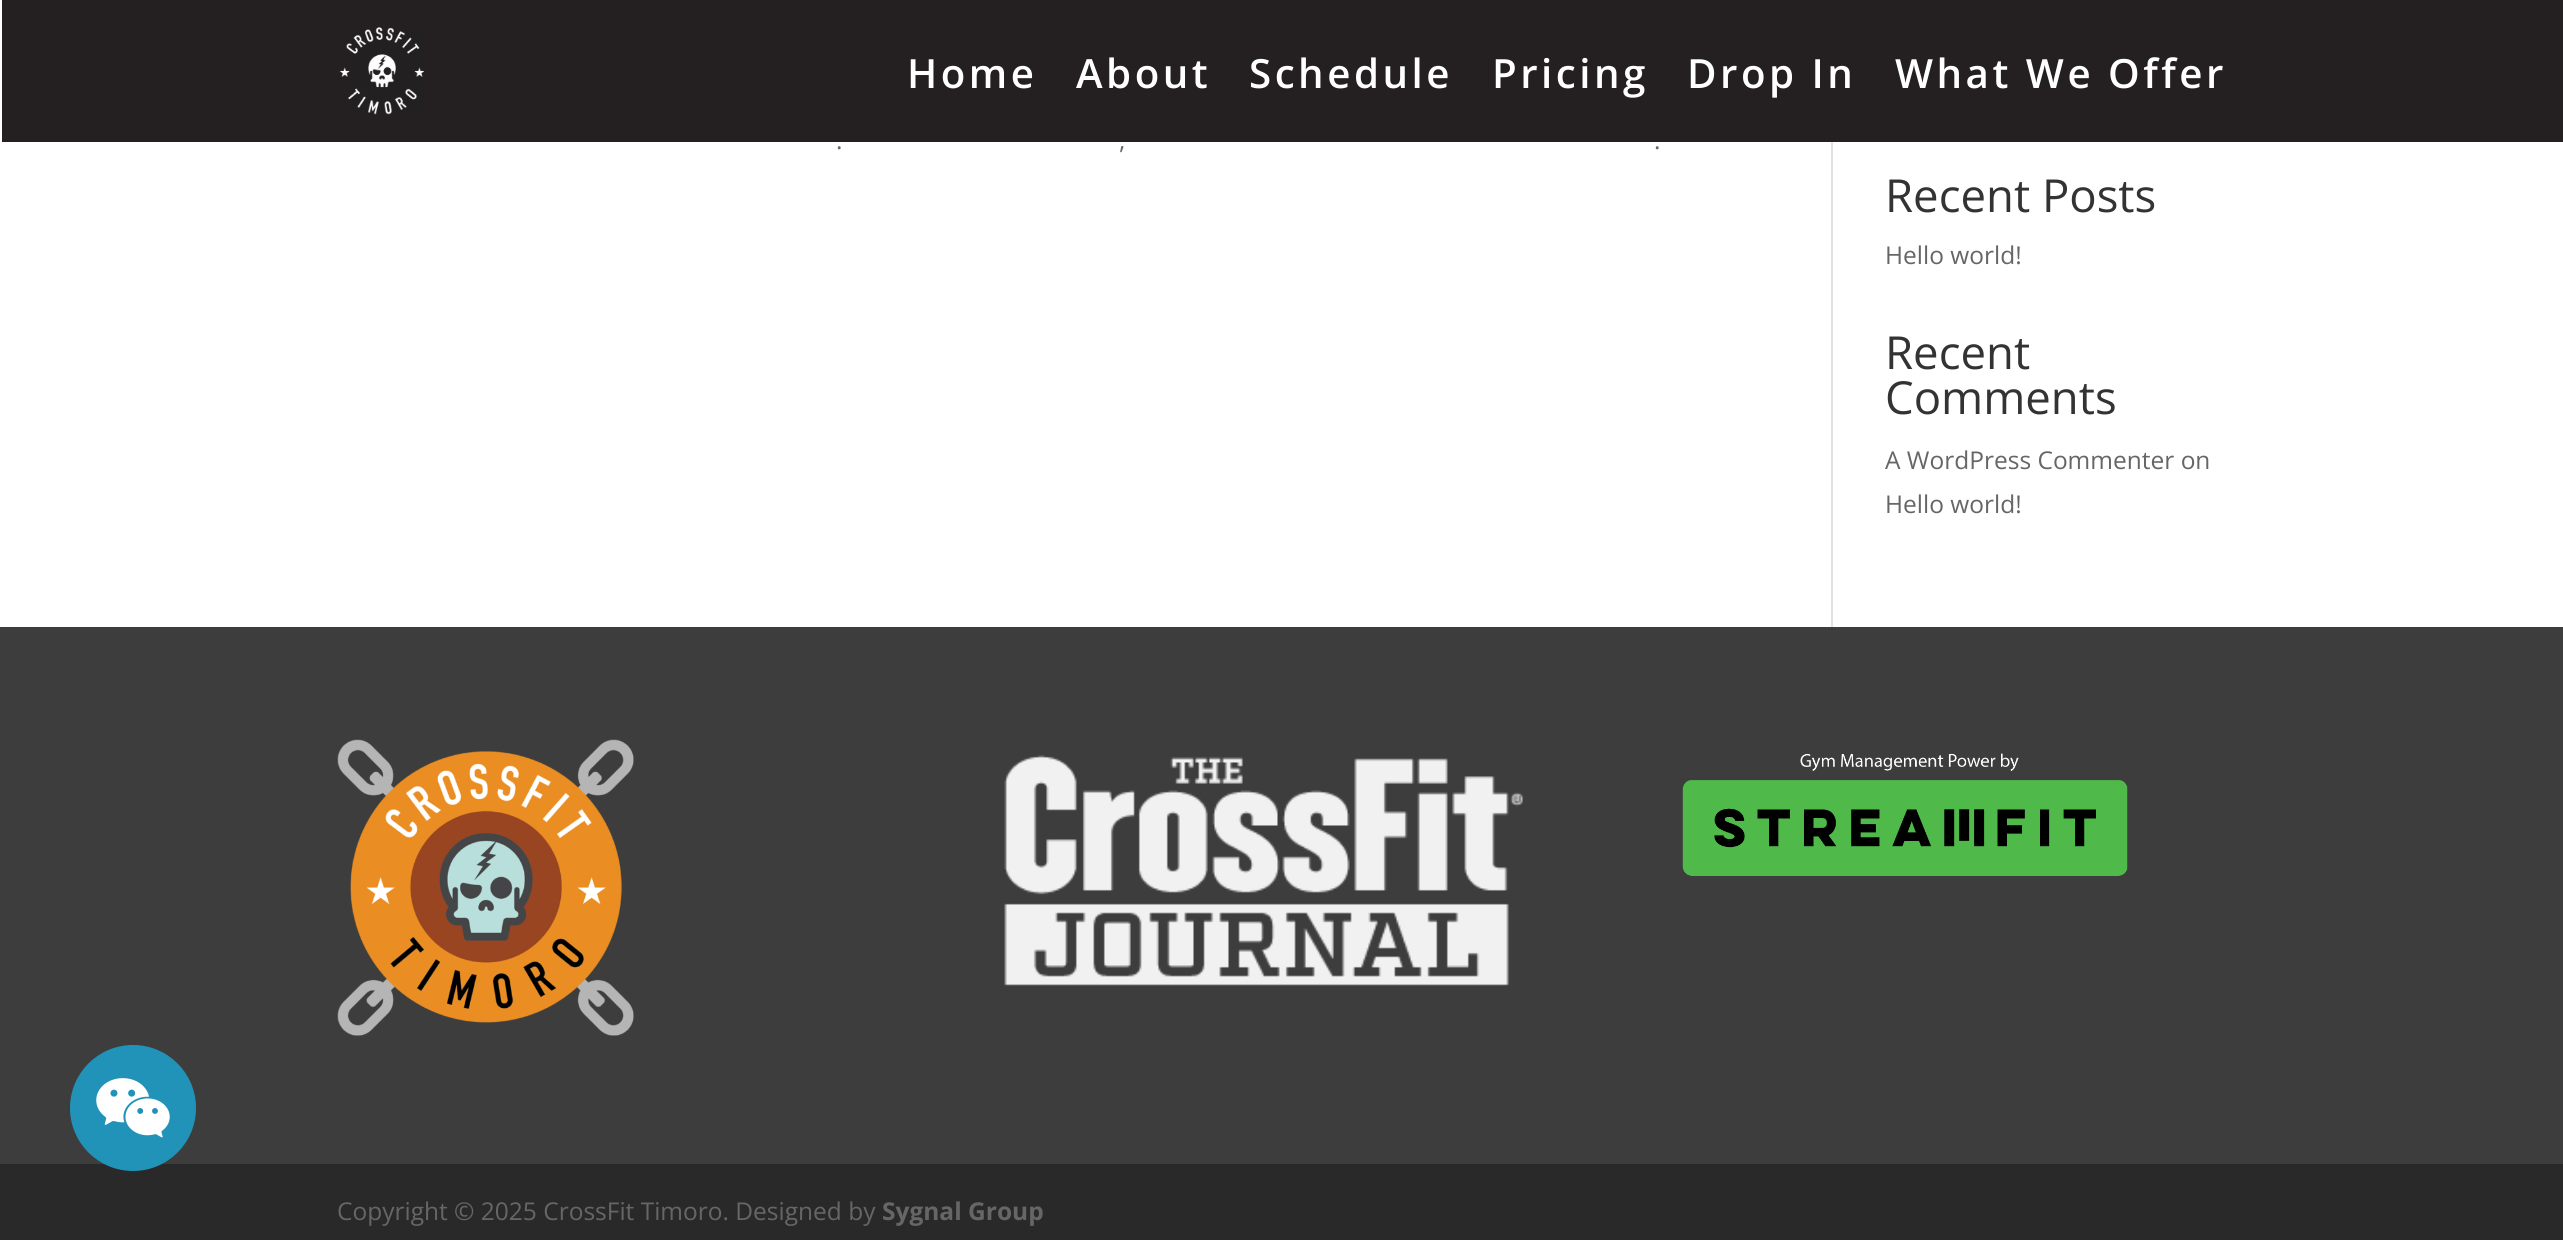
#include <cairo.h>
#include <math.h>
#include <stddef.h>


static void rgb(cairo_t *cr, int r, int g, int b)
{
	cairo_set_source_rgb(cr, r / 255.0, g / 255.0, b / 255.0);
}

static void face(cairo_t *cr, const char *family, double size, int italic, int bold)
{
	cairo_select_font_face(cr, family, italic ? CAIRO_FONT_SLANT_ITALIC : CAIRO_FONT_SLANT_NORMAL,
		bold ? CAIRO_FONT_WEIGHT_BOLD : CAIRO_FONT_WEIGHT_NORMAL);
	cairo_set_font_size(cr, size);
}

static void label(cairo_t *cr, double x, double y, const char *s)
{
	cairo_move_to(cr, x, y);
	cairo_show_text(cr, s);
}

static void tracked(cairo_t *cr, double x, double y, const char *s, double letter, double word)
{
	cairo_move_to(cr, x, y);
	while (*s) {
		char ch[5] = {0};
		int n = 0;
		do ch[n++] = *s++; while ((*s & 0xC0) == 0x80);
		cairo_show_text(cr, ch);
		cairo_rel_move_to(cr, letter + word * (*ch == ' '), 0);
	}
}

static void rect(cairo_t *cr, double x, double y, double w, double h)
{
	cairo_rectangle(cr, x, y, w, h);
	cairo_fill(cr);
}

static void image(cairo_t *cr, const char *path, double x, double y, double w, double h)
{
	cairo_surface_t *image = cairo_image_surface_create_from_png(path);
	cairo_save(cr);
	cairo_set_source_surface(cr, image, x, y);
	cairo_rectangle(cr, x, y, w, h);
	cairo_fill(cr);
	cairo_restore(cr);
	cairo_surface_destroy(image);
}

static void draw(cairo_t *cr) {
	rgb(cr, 255, 255, 255);
	cairo_paint(cr);
	rgb(cr, 61, 61, 61);
	rect(cr, 0, 627, 2563, 537);
	rgb(cr, 41, 41, 41);
	rect(cr, 0, 1164, 2563, 76);
	rgb(cr, 33, 147, 184);
	cairo_arc(cr, 133, 1108, 63, 0, 2 * M_PI);
	cairo_fill(cr);
	image(cr, "image0.png", 96, 1078, 74, 60);
	rgb(cr, 36, 32, 33);
	rect(cr, 2, 0, 2561, 142);
	image(cr, "image1.png", 340, 27, 84, 88);
	face(cr, "Open Sans SemiBold", 40.25, 0, 0);
	rgb(cr, 255, 255, 255);
	tracked(cr, 907, 88, "Home", 3.5, 0);
	tracked(cr, 1076, 88, "About", 3.5, 0);
	tracked(cr, 1249, 88, "Schedule", 3.5, 0);
	tracked(cr, 1492, 88, "Pricing", 3.5, 0);
	tracked(cr, 1687, 88, "Drop In", 3.5, 0);
	tracked(cr, 1895, 88, "What We Offer", 3.5, 0);
	rgb(cr, 226, 226, 226);
	rect(cr, 1831, 142, 2, 485);
	face(cr, "Open Sans", 24.5, 0, 0);
	rgb(cr, 102, 102, 102);
	label(cr, 836, 149, ".");
	label(cr, 1119, 149, ",");
	label(cr, 1654, 149, ".");
	face(cr, "Open Sans", 45.5, 0, 0);
	rgb(cr, 51, 51, 51);
	label(cr, 1885, 212, "Recent Posts");
	face(cr, "Open Sans", 24.5, 0, 0);
	rgb(cr, 102, 102, 102);
	label(cr, 1885, 264, "Hello world!");
	face(cr, "Open Sans", 45.5, 0, 0);
	rgb(cr, 51, 51, 51);
	label(cr, 1885, 369, "Recent");
	label(cr, 1885, 414, "Comments");
	face(cr, "Open Sans", 24.5, 0, 0);
	rgb(cr, 102, 102, 102);
	label(cr, 1885, 469, "A WordPress Commenter on");
	label(cr, 1885, 513, "Hello world!");
	image(cr, "image2.png", 337, 739, 297, 297);
	image(cr, "image3.png", 1004, 755, 519, 231);
	image(cr, "image4.png", 1682, 753, 446, 123);
	label(cr, 337, 1220, "Copyright © 2025 CrossFit Timoro. Designed by");
	face(cr, "Open Sans", 24.5, 0, 1);
	label(cr, 882, 1220, "Sygnal Group");
}

int main(void) {
	cairo_surface_t *surface = cairo_image_surface_create(CAIRO_FORMAT_RGB24, 2563, 1240);
	cairo_t *cr = cairo_create(surface);
	cairo_font_options_t *options = cairo_font_options_create();
	cairo_font_options_set_hint_metrics(options, CAIRO_HINT_METRICS_OFF);
	cairo_font_options_set_hint_style(options, CAIRO_HINT_STYLE_NONE);
	cairo_set_font_options(cr, options);
	cairo_set_miter_limit(cr, 4);
	draw(cr);
	cairo_surface_write_to_png(surface, "render.png");
	cairo_font_options_destroy(options);
	cairo_destroy(cr);
	cairo_surface_destroy(surface);
	return 0;
}
